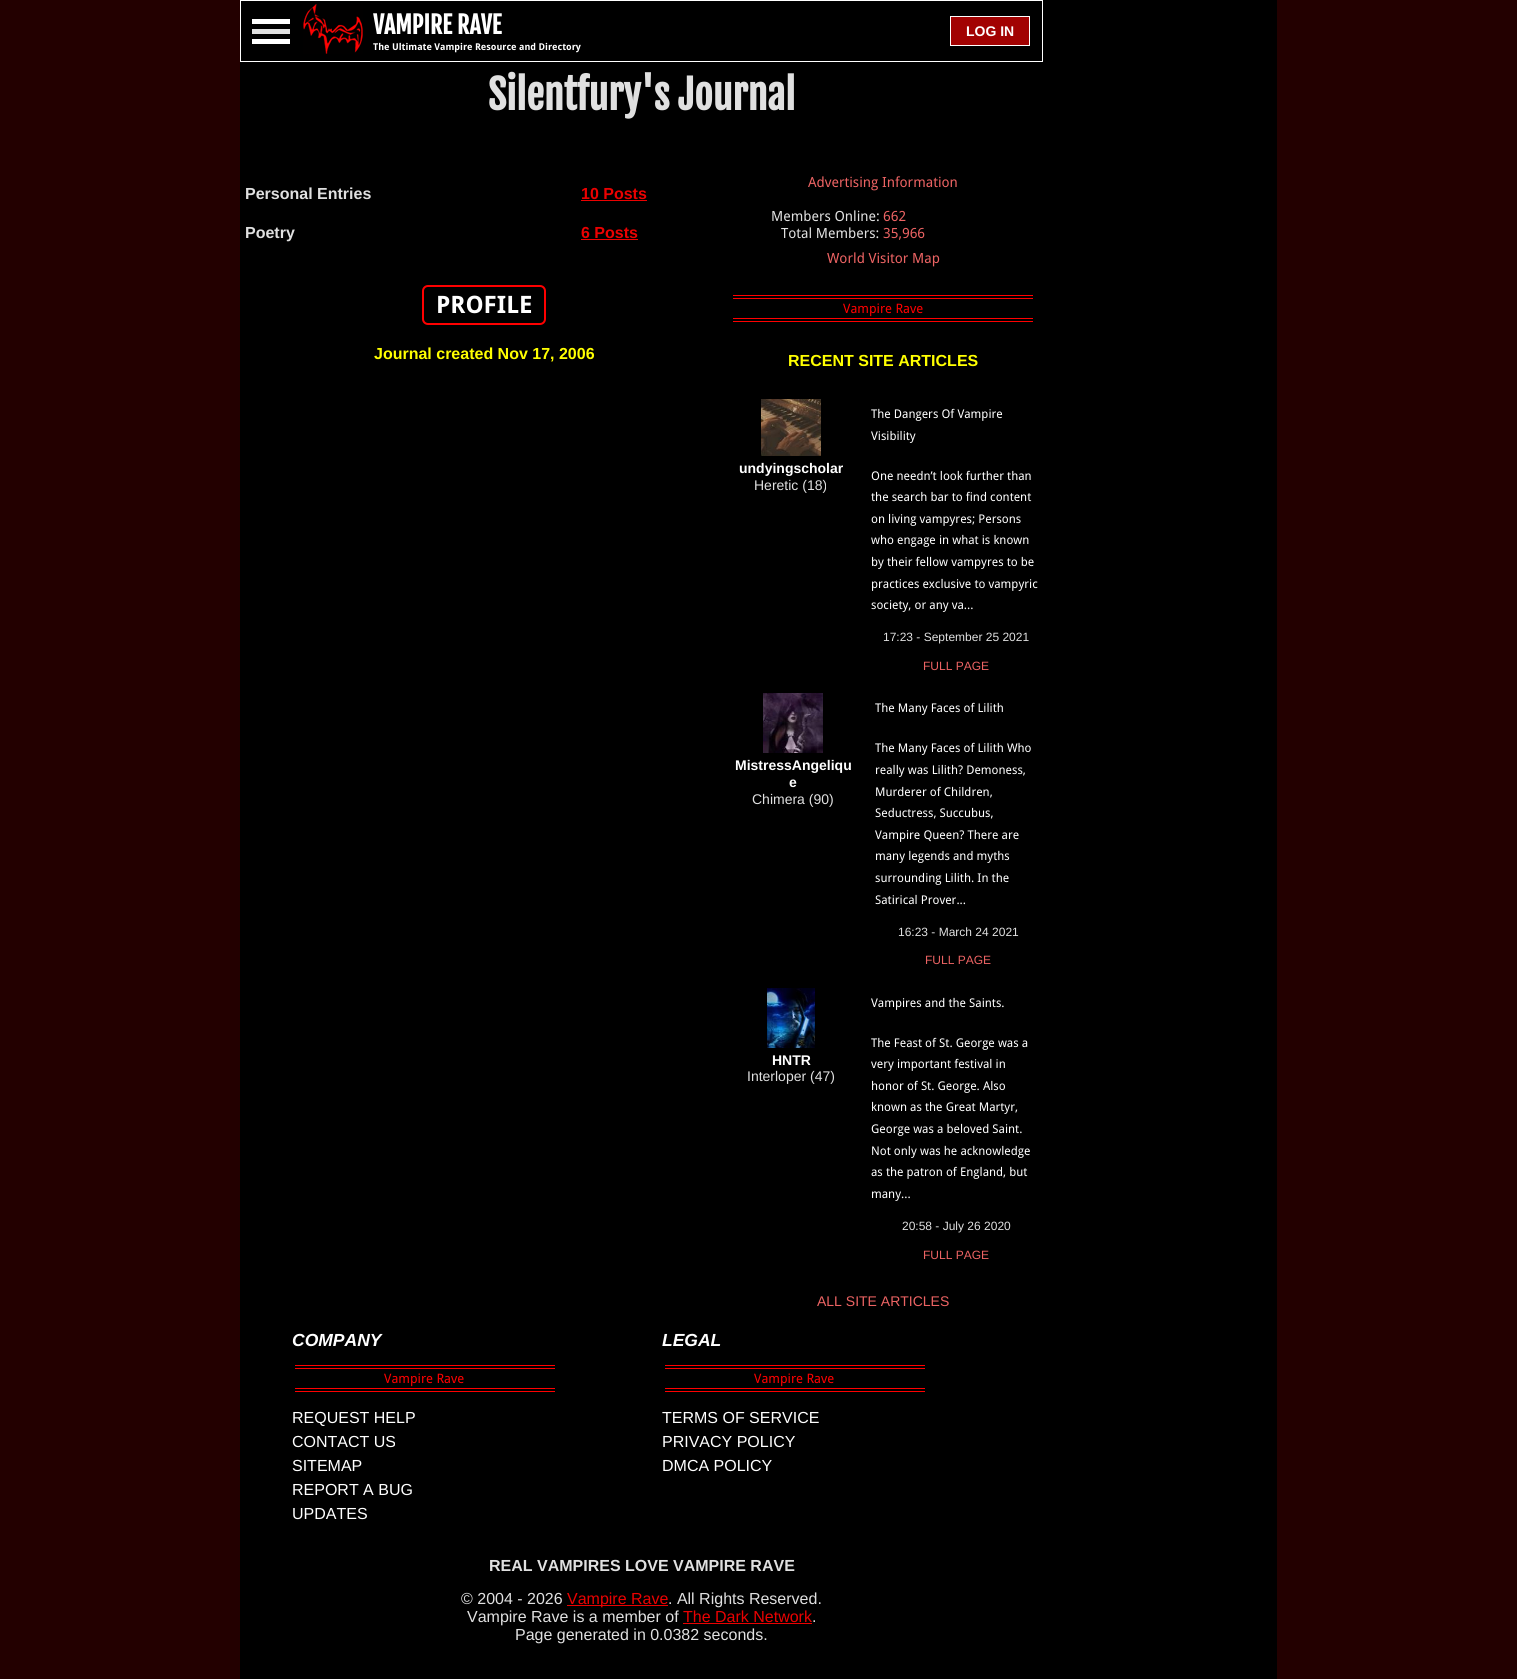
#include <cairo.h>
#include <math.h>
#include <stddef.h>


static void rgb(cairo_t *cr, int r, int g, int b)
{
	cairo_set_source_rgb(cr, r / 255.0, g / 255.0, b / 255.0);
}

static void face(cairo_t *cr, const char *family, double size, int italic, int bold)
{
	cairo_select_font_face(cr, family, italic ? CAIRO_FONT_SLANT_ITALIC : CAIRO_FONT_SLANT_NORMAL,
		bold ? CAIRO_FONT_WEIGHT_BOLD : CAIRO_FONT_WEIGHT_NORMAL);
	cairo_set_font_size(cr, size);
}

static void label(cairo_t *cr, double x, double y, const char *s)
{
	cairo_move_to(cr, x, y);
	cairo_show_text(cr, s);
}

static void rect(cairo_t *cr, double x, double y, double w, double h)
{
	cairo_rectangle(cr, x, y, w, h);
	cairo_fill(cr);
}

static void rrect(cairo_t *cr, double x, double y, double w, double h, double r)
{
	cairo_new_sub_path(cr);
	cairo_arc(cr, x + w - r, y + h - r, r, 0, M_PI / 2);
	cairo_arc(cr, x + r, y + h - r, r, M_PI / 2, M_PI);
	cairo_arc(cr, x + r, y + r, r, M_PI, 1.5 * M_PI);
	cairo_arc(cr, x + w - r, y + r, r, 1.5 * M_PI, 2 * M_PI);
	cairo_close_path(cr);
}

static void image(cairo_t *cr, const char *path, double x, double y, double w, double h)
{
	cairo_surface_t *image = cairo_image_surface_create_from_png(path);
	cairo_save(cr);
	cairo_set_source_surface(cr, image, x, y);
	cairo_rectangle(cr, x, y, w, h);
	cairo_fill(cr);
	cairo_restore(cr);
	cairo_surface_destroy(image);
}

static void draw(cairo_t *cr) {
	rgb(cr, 35, 0, 0);
	cairo_paint(cr);
	rgb(cr, 0, 0, 0);
	rect(cr, 240, 0, 1037, 1679);
	cairo_rectangle(cr, 240.5, 0.5, 802, 61);
	rgb(cr, 255, 255, 255);
	cairo_set_line_width(cr, 1);
	cairo_stroke(cr);
	rgb(cr, 224, 224, 224);
	rect(cr, 252, 29, 38, 5);
	rgb(cr, 255, 255, 255);
	rect(cr, 252, 19, 38, 5);
	rect(cr, 252, 39, 38, 5);
	image(cr, "image0.png", 303, 4, 60, 50);
	face(cr, "Fjalla One", 24, 0, 1);
	label(cr, 373, 34, "VAMPIRE RAVE");
	face(cr, "Droid Sans", 9.4, 0, 1);
	label(cr, 373, 50, "The Ultimate Vampire Resource and Directory");
	rgb(cr, 162, 2, 2);
	cairo_rectangle(cr, 950.5, 16.5, 79, 29);
	cairo_fill_preserve(cr);
	rgb(cr, 255, 255, 255);
	cairo_stroke(cr);
	face(cr, "Liberation Sans", 14, 0, 1);
	label(cr, 966, 36, "LOG IN");
	face(cr, "Fjalla One", 40, 0, 1);
	rgb(cr, 224, 224, 224);
	label(cr, 488, 110, "Silentfury's Journal");
	face(cr, "Liberation Sans", 16, 0, 1);
	label(cr, 245, 199, "Personal Entries");
	rgb(cr, 235, 1, 1);
	label(cr, 581, 199, "10 Posts");
	rect(cr, 581, 200, 66, 1);
	rgb(cr, 224, 224, 224);
	label(cr, 245, 238, "Poetry");
	rgb(cr, 235, 1, 1);
	label(cr, 581, 238, "6 Posts");
	rect(cr, 581, 239, 57, 1);
	rrect(cr, 423, 286, 122, 38, 5);
	rgb(cr, 255, 0, 0);
	cairo_set_line_width(cr, 2);
	cairo_stroke(cr);
	face(cr, "Droid Sans", 24, 0, 1);
	rgb(cr, 255, 255, 255);
	label(cr, 436, 313, "PROFILE");
	face(cr, "Liberation Sans", 16, 0, 1);
	rgb(cr, 255, 255, 0);
	label(cr, 374, 359, "Journal created Nov 17, 2006");
	face(cr, "Droid Sans", 14, 0, 0);
	rgb(cr, 236, 99, 99);
	label(cr, 808, 187, "Advertising Information");
	rgb(cr, 224, 224, 224);
	label(cr, 771, 221, "Members Online:");
	rgb(cr, 236, 99, 99);
	label(cr, 883, 221, "662");
	rgb(cr, 224, 224, 224);
	label(cr, 781, 238, "Total Members:");
	rgb(cr, 236, 99, 99);
	label(cr, 883, 238, "35,966");
	label(cr, 827, 263, "World Visitor Map");
	rgb(cr, 255, 0, 0);
	rect(cr, 733, 295, 300, 1);
	rect(cr, 733, 298, 300, 1);
	rect(cr, 733, 318, 300, 1);
	rect(cr, 733, 321, 300, 1);
	face(cr, "Droid Sans", 13, 0, 0);
	label(cr, 843, 313, "Vampire Rave");
	face(cr, "Liberation Sans", 16, 0, 1);
	rgb(cr, 255, 255, 0);
	label(cr, 788, 366, "RECENT SITE ARTICLES");
	image(cr, "image1.png", 761, 399, 60, 57);
	face(cr, "Liberation Sans", 14, 0, 1);
	rgb(cr, 255, 255, 255);
	label(cr, 739, 473, "undyingscholar");
	face(cr, "Liberation Sans", 14, 0, 0);
	rgb(cr, 224, 224, 224);
	label(cr, 754, 490, "Heretic (18)");
	face(cr, "Droid Sans", 12, 0, 0);
	rgb(cr, 255, 255, 255);
	label(cr, 871, 418, "The Dangers Of Vampire");
	label(cr, 871, 440, "Visibility");
	label(cr, 871, 480, "One needn’t look further than");
	label(cr, 871, 501, "the search bar to find content");
	label(cr, 871, 523, "on living vampyres; Persons");
	label(cr, 871, 544, "who engage in what is known");
	label(cr, 871, 566, "by their fellow vampyres to be");
	label(cr, 871, 588, "practices exclusive to vampyric");
	label(cr, 871, 609, "society, or any va...");
	face(cr, "Liberation Sans", 12, 0, 0);
	rgb(cr, 224, 224, 224);
	label(cr, 883, 641, "17:23 - September 25 2021");
	rgb(cr, 236, 99, 99);
	label(cr, 923, 670, "FULL PAGE");
	image(cr, "image2.png", 763, 693, 60, 60);
	face(cr, "Liberation Sans", 14, 0, 1);
	rgb(cr, 255, 255, 255);
	label(cr, 735, 770, "MistressAngeliqu");
	label(cr, 789, 787, "e");
	face(cr, "Liberation Sans", 14, 0, 0);
	rgb(cr, 224, 224, 224);
	label(cr, 752, 804, "Chimera (90)");
	face(cr, "Droid Sans", 12, 0, 0);
	rgb(cr, 255, 255, 255);
	label(cr, 875, 712, "The Many Faces of Lilith");
	label(cr, 875, 752, "The Many Faces of Lilith Who");
	label(cr, 875, 774, "really was Lilith? Demoness,");
	label(cr, 875, 796, "Murderer of Children,");
	label(cr, 875, 817, "Seductress, Succubus,");
	label(cr, 875, 839, "Vampire Queen? There are");
	label(cr, 875, 860, "many legends and myths");
	label(cr, 875, 882, "surrounding Lilith. In the");
	label(cr, 875, 904, "Satirical Prover...");
	face(cr, "Liberation Sans", 12, 0, 0);
	rgb(cr, 224, 224, 224);
	label(cr, 898, 936, "16:23 - March 24 2021");
	rgb(cr, 236, 99, 99);
	label(cr, 925, 964, "FULL PAGE");
	image(cr, "image3.png", 767, 988, 48, 60);
	face(cr, "Liberation Sans", 14, 0, 1);
	rgb(cr, 255, 255, 255);
	label(cr, 772, 1065, "HNTR");
	face(cr, "Liberation Sans", 14, 0, 0);
	rgb(cr, 224, 224, 224);
	label(cr, 747, 1081, "Interloper (47)");
	face(cr, "Droid Sans", 12, 0, 0);
	rgb(cr, 255, 255, 255);
	label(cr, 871, 1007, "Vampires and the Saints.");
	label(cr, 871, 1047, "The Feast of St. George was a");
	label(cr, 871, 1068, "very important festival in");
	label(cr, 871, 1090, "honor of St. George. Also");
	label(cr, 871, 1111, "known as the Great Martyr,");
	label(cr, 871, 1133, "George was a beloved Saint.");
	label(cr, 871, 1155, "Not only was he acknowledge");
	label(cr, 871, 1176, "as the patron of England, but");
	label(cr, 871, 1198, "many...");
	face(cr, "Liberation Sans", 12, 0, 0);
	rgb(cr, 224, 224, 224);
	label(cr, 902, 1230, "20:58 - July 26 2020");
	rgb(cr, 236, 99, 99);
	label(cr, 923, 1259, "FULL PAGE");
	face(cr, "Liberation Sans", 14, 0, 0);
	label(cr, 817, 1306, "ALL SITE ARTICLES");
	face(cr, "Liberation Sans", 17.5, 1, 1);
	rgb(cr, 255, 255, 255);
	label(cr, 292, 1346, "COMPANY");
	rgb(cr, 255, 0, 0);
	rect(cr, 295, 1365, 260, 1);
	rect(cr, 295, 1368, 260, 1);
	rect(cr, 295, 1388, 260, 1);
	rect(cr, 295, 1391, 260, 1);
	face(cr, "Droid Sans", 13, 0, 0);
	label(cr, 384, 1383, "Vampire Rave");
	face(cr, "Liberation Sans", 16, 0, 0);
	rgb(cr, 255, 255, 255);
	label(cr, 292, 1423, "REQUEST HELP");
	label(cr, 292, 1447, "CONTACT US");
	label(cr, 292, 1471, "SITEMAP");
	label(cr, 292, 1495, "REPORT A BUG");
	label(cr, 292, 1519, "UPDATES");
	face(cr, "Liberation Sans", 17.5, 1, 1);
	label(cr, 662, 1346, "LEGAL");
	rgb(cr, 255, 0, 0);
	rect(cr, 665, 1365, 260, 1);
	rect(cr, 665, 1368, 260, 1);
	rect(cr, 665, 1388, 260, 1);
	rect(cr, 665, 1391, 260, 1);
	face(cr, "Droid Sans", 13, 0, 0);
	label(cr, 754, 1383, "Vampire Rave");
	face(cr, "Liberation Sans", 16, 0, 0);
	rgb(cr, 255, 255, 255);
	label(cr, 662, 1423, "TERMS OF SERVICE");
	label(cr, 662, 1447, "PRIVACY POLICY");
	label(cr, 662, 1471, "DMCA POLICY");
	face(cr, "Liberation Sans", 16, 0, 1);
	rgb(cr, 224, 224, 224);
	label(cr, 489, 1571, "REAL VAMPIRES LOVE VAMPIRE RAVE");
	face(cr, "Liberation Sans", 16, 0, 0);
	label(cr, 461, 1604, "© 2004 - 2026");
	rgb(cr, 235, 1, 1);
	rect(cr, 567, 1605, 101, 1);
	label(cr, 567, 1604, "Vampire Rave");
	rgb(cr, 224, 224, 224);
	label(cr, 668, 1604, ". All Rights Reserved.");
	label(cr, 467, 1622, "Vampire Rave is a member of");
	rgb(cr, 235, 1, 1);
	label(cr, 683, 1622, "The Dark Network");
	rect(cr, 683, 1623, 129, 1);
	rgb(cr, 224, 224, 224);
	label(cr, 812, 1622, ".");
	label(cr, 515, 1640, "Page generated in 0.0382 seconds.");
}

int main(void) {
	cairo_surface_t *surface = cairo_image_surface_create(CAIRO_FORMAT_RGB24, 1517, 1679);
	cairo_t *cr = cairo_create(surface);
	cairo_font_options_t *options = cairo_font_options_create();
	cairo_font_options_set_hint_metrics(options, CAIRO_HINT_METRICS_OFF);
	cairo_font_options_set_hint_style(options, CAIRO_HINT_STYLE_NONE);
	cairo_set_font_options(cr, options);
	cairo_set_miter_limit(cr, 4);
	draw(cr);
	cairo_surface_write_to_png(surface, "render.png");
	cairo_font_options_destroy(options);
	cairo_destroy(cr);
	cairo_surface_destroy(surface);
	return 0;
}
